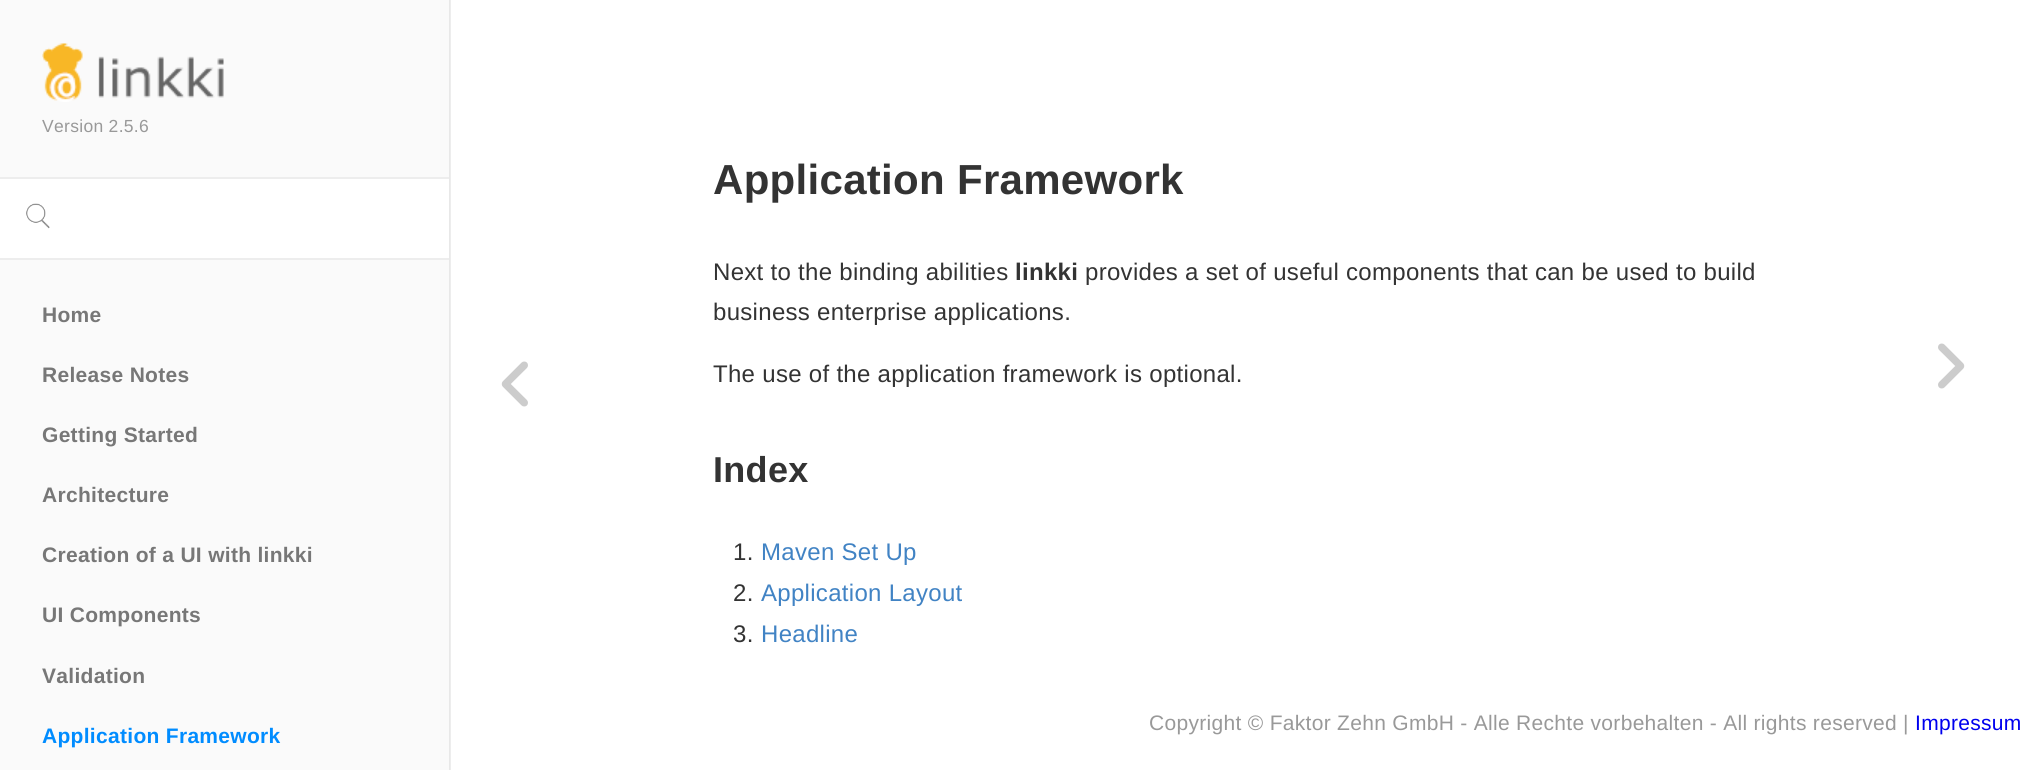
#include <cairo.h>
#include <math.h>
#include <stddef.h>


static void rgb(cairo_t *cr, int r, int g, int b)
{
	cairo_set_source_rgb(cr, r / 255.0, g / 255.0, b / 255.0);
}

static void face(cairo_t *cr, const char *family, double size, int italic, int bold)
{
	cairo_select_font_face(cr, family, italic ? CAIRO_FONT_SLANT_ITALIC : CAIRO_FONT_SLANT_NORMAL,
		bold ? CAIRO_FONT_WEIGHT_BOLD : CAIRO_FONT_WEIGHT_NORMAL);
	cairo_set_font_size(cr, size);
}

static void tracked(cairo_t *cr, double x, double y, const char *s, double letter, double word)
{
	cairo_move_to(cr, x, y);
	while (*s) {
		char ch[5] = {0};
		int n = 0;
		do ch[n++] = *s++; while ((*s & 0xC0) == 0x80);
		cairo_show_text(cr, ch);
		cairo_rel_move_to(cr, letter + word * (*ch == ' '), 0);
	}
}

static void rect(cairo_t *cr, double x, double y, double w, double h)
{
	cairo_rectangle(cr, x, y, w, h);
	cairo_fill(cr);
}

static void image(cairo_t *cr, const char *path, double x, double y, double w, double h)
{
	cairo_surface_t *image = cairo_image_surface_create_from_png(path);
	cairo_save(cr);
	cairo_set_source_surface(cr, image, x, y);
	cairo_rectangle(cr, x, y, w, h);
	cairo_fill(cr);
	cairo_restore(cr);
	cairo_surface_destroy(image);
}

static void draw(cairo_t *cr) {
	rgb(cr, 255, 255, 255);
	cairo_paint(cr);
	rgb(cr, 237, 237, 237);
	rect(cr, 450, 0, 1, 770);
	rgb(cr, 250, 250, 250);
	rect(cr, 0, 0, 449, 770);
	rgb(cr, 232, 232, 232);
	rect(cr, 449, 0, 1, 770);
	image(cr, "image0.png", 42, 43, 182, 59);
	face(cr, "Liberation Sans", 17.5, 0, 0);
	rgb(cr, 153, 153, 153);
	tracked(cr, 42, 132, "Version 2.5.6", 0.3, 0);
	rgb(cr, 255, 255, 255);
	rect(cr, 0, 179, 449, 79);
	rgb(cr, 237, 237, 237);
	rect(cr, 0, 177, 449, 2);
	rect(cr, 0, 258, 449, 2);
	image(cr, "image1.png", 26, 203, 24, 26);
	face(cr, "Liberation Sans", 21, 0, 1);
	rgb(cr, 119, 119, 119);
	tracked(cr, 42, 322, "Home", 0.3, 0);
	tracked(cr, 42, 382, "Release Notes", 0.3, 0);
	tracked(cr, 42, 442, "Getting Started", 0.3, 0);
	tracked(cr, 42, 502, "Architecture", 0.3, 0);
	tracked(cr, 42, 562, "Creation of a UI with linkki", 0.3, 0);
	tracked(cr, 42, 622, "UI Components", 0.3, 0);
	tracked(cr, 42, 683, "Validation", 0.3, 0);
	rgb(cr, 0, 140, 255);
	tracked(cr, 42, 743, "Application Framework", 0.3, 0);
	image(cr, "image2.png", 501, 361, 27, 46);
	face(cr, "Liberation Sans", 42, 0, 1);
	rgb(cr, 51, 51, 51);
	tracked(cr, 713, 194, "Application Framework", 0.3, 0);
	face(cr, "Liberation Sans", 24, 0, 0);
	tracked(cr, 713, 280, "Next to the binding abilities", 0.3, 0);
	face(cr, "Liberation Sans", 24, 0, 1);
	tracked(cr, 1015, 280, "linkki", 0.3, 0);
	face(cr, "Liberation Sans", 24, 0, 0);
	tracked(cr, 1085, 280, "provides a set of useful components that can be used to build", 0.3, 0);
	tracked(cr, 713, 320, "business enterprise applications.", 0.3, 0);
	tracked(cr, 713, 382, "The use of the application framework is optional.", 0.3, 0);
	face(cr, "Liberation Sans", 36, 0, 1);
	tracked(cr, 713, 482, "Index", 0.3, 0);
	face(cr, "Liberation Sans", 24, 0, 0);
	tracked(cr, 733, 560, "1.", 0.3, 0);
	rgb(cr, 65, 131, 196);
	tracked(cr, 761, 560, "Maven Set Up", 0.3, 0);
	rgb(cr, 51, 51, 51);
	tracked(cr, 733, 601, "2.", 0.3, 0);
	rgb(cr, 65, 131, 196);
	tracked(cr, 761, 601, "Application Layout", 0.3, 0);
	rgb(cr, 51, 51, 51);
	tracked(cr, 733, 642, "3.", 0.3, 0);
	rgb(cr, 65, 131, 196);
	tracked(cr, 761, 642, "Headline", 0.3, 0);
	image(cr, "image3.png", 1938, 343, 27, 46);
	face(cr, "Liberation Sans", 21, 0, 0);
	rgb(cr, 153, 153, 153);
	tracked(cr, 1149, 730, "Copyright © Faktor Zehn GmbH - Alle Rechte vorbehalten - All rights reserved |", 0.3, 0);
	rgb(cr, 0, 0, 238);
	tracked(cr, 1915, 730, "Impressum", 0.3, 0);
}

int main(void) {
	cairo_surface_t *surface = cairo_image_surface_create(CAIRO_FORMAT_RGB24, 2043, 770);
	cairo_t *cr = cairo_create(surface);
	cairo_font_options_t *options = cairo_font_options_create();
	cairo_font_options_set_hint_metrics(options, CAIRO_HINT_METRICS_OFF);
	cairo_font_options_set_hint_style(options, CAIRO_HINT_STYLE_NONE);
	cairo_set_font_options(cr, options);
	cairo_set_miter_limit(cr, 4);
	draw(cr);
	cairo_surface_write_to_png(surface, "render.png");
	cairo_font_options_destroy(options);
	cairo_destroy(cr);
	cairo_surface_destroy(surface);
	return 0;
}
